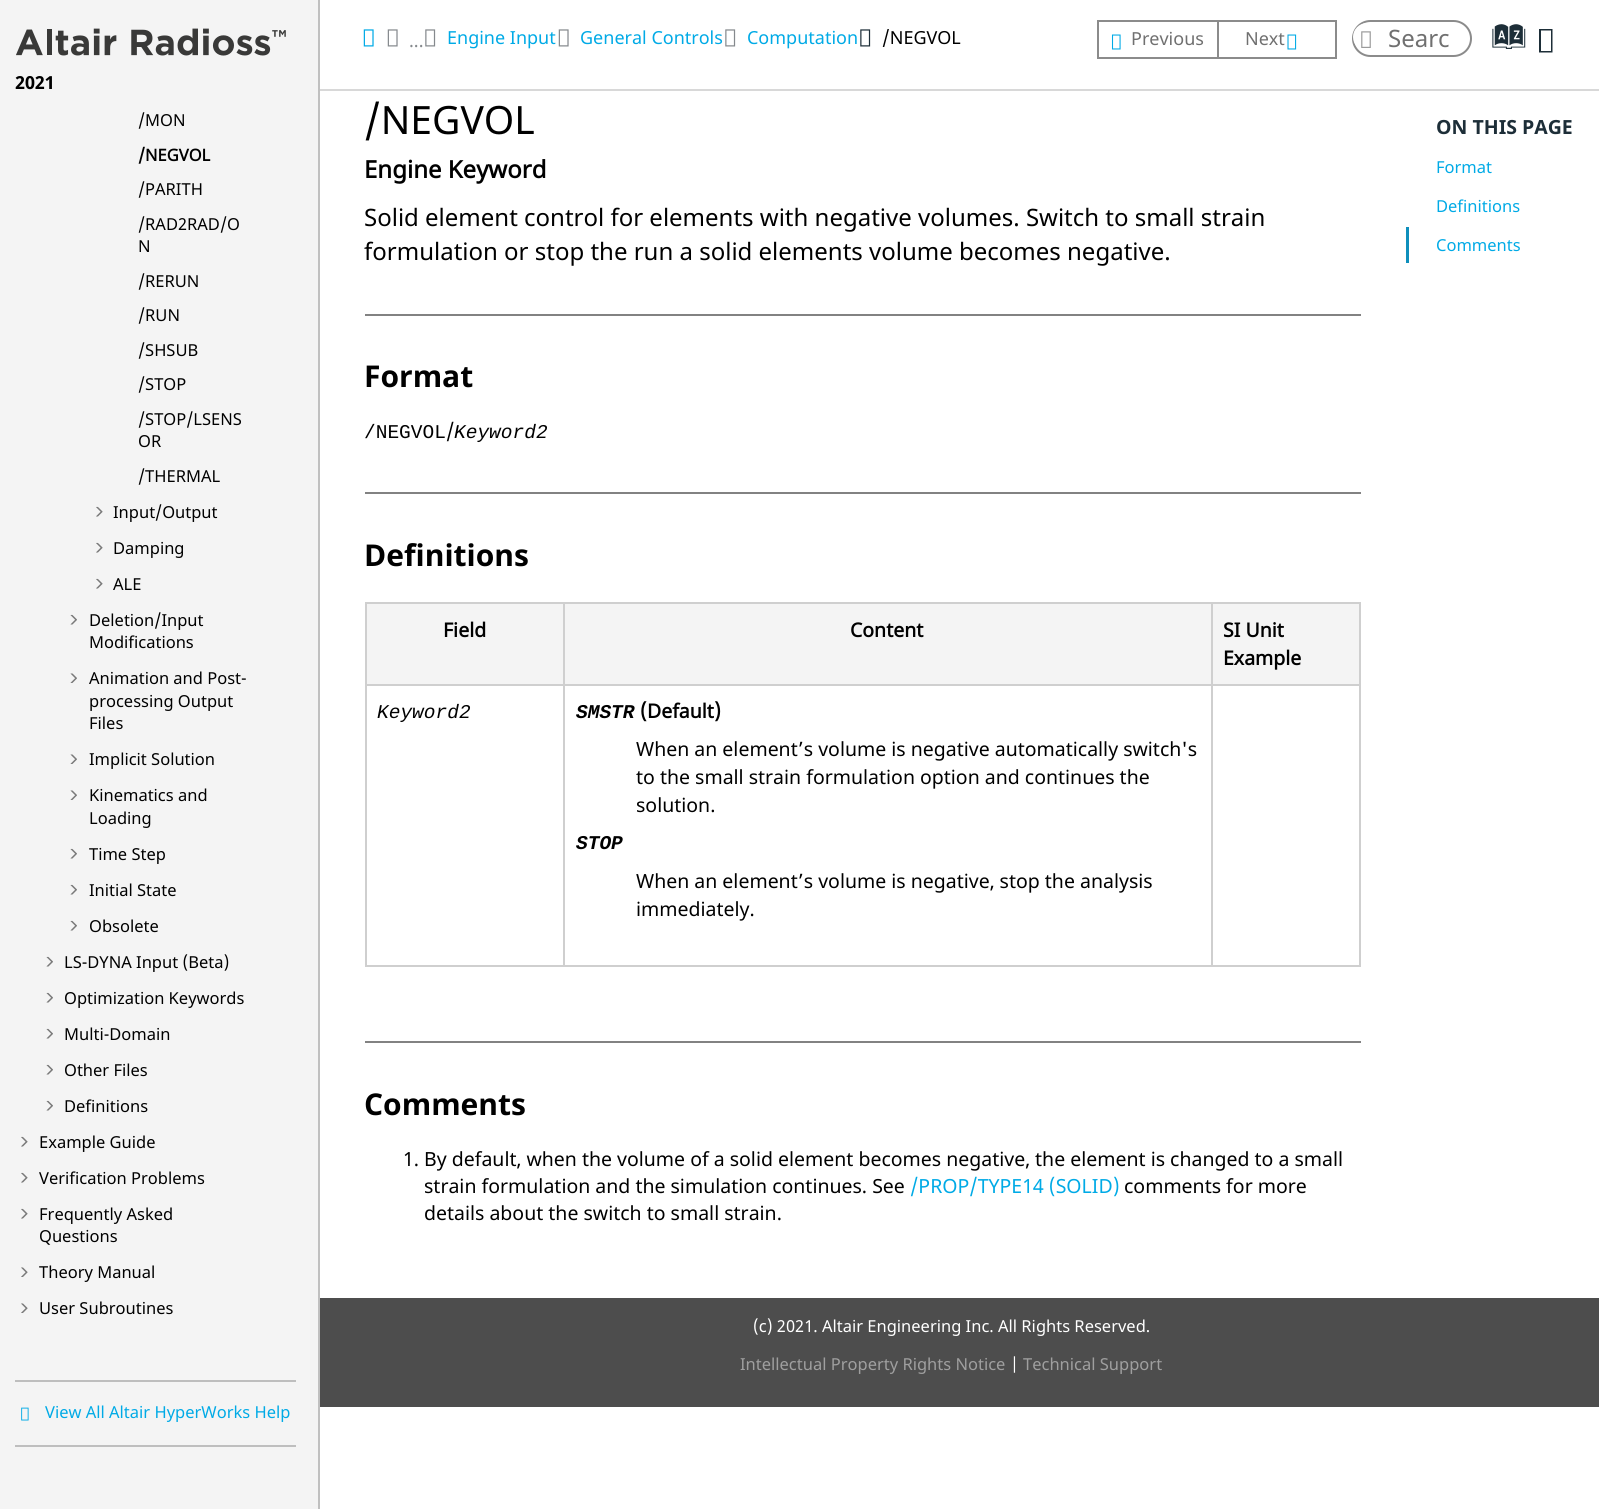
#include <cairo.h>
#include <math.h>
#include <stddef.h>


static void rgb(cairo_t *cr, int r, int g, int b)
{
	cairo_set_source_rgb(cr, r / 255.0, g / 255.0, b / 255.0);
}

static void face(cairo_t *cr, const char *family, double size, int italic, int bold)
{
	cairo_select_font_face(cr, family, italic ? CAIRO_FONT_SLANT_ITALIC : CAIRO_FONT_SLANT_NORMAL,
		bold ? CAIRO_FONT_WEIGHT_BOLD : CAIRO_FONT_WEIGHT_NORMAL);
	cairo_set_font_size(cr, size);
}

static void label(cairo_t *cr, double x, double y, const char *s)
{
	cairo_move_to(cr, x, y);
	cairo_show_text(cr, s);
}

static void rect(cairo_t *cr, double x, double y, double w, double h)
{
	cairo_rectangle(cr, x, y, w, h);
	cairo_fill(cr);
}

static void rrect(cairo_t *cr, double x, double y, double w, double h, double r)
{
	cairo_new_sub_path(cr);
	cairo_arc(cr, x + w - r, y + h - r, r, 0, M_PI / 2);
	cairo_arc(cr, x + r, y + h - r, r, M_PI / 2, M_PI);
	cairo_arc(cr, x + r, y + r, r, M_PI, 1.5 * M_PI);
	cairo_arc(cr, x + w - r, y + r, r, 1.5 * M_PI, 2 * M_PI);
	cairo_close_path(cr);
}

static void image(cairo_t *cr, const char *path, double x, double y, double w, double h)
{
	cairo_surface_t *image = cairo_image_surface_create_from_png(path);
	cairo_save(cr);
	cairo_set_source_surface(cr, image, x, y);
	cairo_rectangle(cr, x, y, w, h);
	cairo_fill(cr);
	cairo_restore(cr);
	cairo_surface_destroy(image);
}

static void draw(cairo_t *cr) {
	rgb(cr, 255, 255, 255);
	cairo_paint(cr);
	rgb(cr, 244, 244, 244);
	rect(cr, 0, 0, 318, 1509);
	rgb(cr, 192, 192, 192);
	rect(cr, 318, 0, 2, 1509);
	image(cr, "image0.png", 16, 28, 270, 28);
	face(cr, "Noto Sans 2", 18, 0, 1);
	rgb(cr, 0, 0, 0);
	label(cr, 15, 89, "2021");
	face(cr, "Noto Sans", 16.5, 0, 0);
	label(cr, 138, 126, "/MON");
	face(cr, "Noto Sans", 16.5, 0, 1);
	label(cr, 138, 161, "/NEGVOL");
	face(cr, "Noto Sans", 16.5, 0, 0);
	label(cr, 138, 195, "/PARITH");
	label(cr, 138, 230, "/RAD2RAD/O");
	label(cr, 138, 252, "N");
	label(cr, 138, 287, "/RERUN");
	label(cr, 138, 321, "/RUN");
	label(cr, 138, 356, "/SHSUB");
	label(cr, 138, 390, "/STOP");
	label(cr, 138, 425, "/STOP/LSENS");
	label(cr, 138, 447, "OR");
	label(cr, 138, 482, "/THERMAL");
	image(cr, "image1.png", 96, 506, 7, 11);
	label(cr, 113, 518, "Input/Output");
	image(cr, "image1.png", 96, 542, 7, 11);
	label(cr, 113, 554, "Damping");
	image(cr, "image1.png", 96, 578, 7, 11);
	label(cr, 113, 590, "ALE");
	image(cr, "image2.png", 70, 614, 7, 11);
	label(cr, 89, 626, "Deletion/Input");
	label(cr, 89, 648, "Modifications");
	image(cr, "image3.png", 70, 673, 7, 10);
	label(cr, 89, 684, "Animation and Post-");
	label(cr, 89, 707, "processing Output");
	label(cr, 89, 729, "Files");
	image(cr, "image3.png", 70, 754, 7, 10);
	label(cr, 89, 765, "Implicit Solution");
	image(cr, "image3.png", 70, 790, 7, 10);
	label(cr, 89, 801, "Kinematics and");
	label(cr, 89, 824, "Loading");
	image(cr, "image2.png", 70, 848, 7, 11);
	label(cr, 89, 860, "Time Step");
	image(cr, "image2.png", 70, 884, 7, 11);
	label(cr, 89, 896, "Initial State");
	image(cr, "image2.png", 70, 920, 7, 11);
	label(cr, 89, 932, "Obsolete");
	image(cr, "image2.png", 46, 956, 7, 11);
	label(cr, 64, 968, "LS-DYNA Input (Beta)");
	image(cr, "image2.png", 46, 992, 7, 11);
	label(cr, 64, 1004, "Optimization Keywords");
	image(cr, "image2.png", 46, 1028, 7, 11);
	label(cr, 64, 1040, "Multi-Domain");
	image(cr, "image2.png", 46, 1064, 7, 11);
	label(cr, 64, 1076, "Other Files");
	image(cr, "image2.png", 46, 1100, 7, 11);
	label(cr, 64, 1112, "Definitions");
	image(cr, "image1.png", 21, 1136, 7, 11);
	label(cr, 39, 1148, "Example Guide");
	image(cr, "image1.png", 21, 1172, 7, 11);
	label(cr, 39, 1184, "Verification Problems");
	image(cr, "image1.png", 21, 1208, 7, 11);
	label(cr, 39, 1220, "Frequently Asked");
	label(cr, 39, 1242, "Questions");
	image(cr, "image4.png", 21, 1267, 7, 10);
	label(cr, 39, 1278, "Theory Manual");
	image(cr, "image4.png", 21, 1303, 7, 10);
	label(cr, 39, 1314, "User Subroutines");
	rgb(cr, 190, 190, 190);
	rect(cr, 15, 1380, 281, 2);
	rect(cr, 15, 1445, 281, 2);
	image(cr, "image5.png", 21, 1407, 8, 14);
	rgb(cr, 0, 170, 230);
	label(cr, 45, 1418, "View All Altair HyperWorks Help");
	rgb(cr, 216, 216, 216);
	rect(cr, 320, 89, 1279, 2);
	image(cr, "image6.png", 363, 29, 11, 18);
	image(cr, "image7.png", 387, 29, 11, 18);
	face(cr, "Noto Sans", 18, 0, 0);
	rgb(cr, 133, 137, 141);
	label(cr, 409, 47, "...");
	image(cr, "image8.png", 425, 29, 11, 18);
	rgb(cr, 0, 170, 230);
	label(cr, 447, 44, "Engine Input");
	image(cr, "image7.png", 558, 29, 11, 18);
	label(cr, 580, 44, "General Controls");
	image(cr, "image8.png", 725, 29, 11, 18);
	label(cr, 747, 44, "Computation");
	image(cr, "image9.png", 860, 29, 11, 18);
	rgb(cr, 0, 0, 0);
	label(cr, 882, 44, "/NEGVOL");
	rgb(cr, 139, 139, 139);
	rect(cr, 1097, 20, 120, 2);
	rect(cr, 1097, 57, 120, 2);
	rect(cr, 1097, 20, 2, 39);
	image(cr, "image10.png", 1111, 34, 10, 16);
	rgb(cr, 112, 112, 112);
	label(cr, 1131, 45, "Previous");
	cairo_rectangle(cr, 1218, 21, 118, 37);
	rgb(cr, 139, 139, 139);
	cairo_stroke(cr);
	rgb(cr, 112, 112, 112);
	label(cr, 1245, 45, "Next");
	image(cr, "image11.png", 1287, 34, 10, 16);
	rrect(cr, 1353, 21, 118, 35, 17.5);
	rgb(cr, 139, 139, 139);
	cairo_stroke(cr);
	rgb(cr, 255, 255, 255);
	rrect(cr, 1353, 23, 30, 28, 14);
	cairo_fill(cr);
	image(cr, "image12.png", 1361, 31, 10, 17);
	face(cr, "Noto Sans", 24, 0, 0);
	rgb(cr, 112, 112, 112);
	label(cr, 1388, 47, "Searc");
	face(cr, "Oxygen", 35, 0, 0);
	rgb(cr, 29, 46, 56);
	label(cr, 1496, 53, "a");
	cairo_new_path(cr);
	cairo_move_to(cr, 1539, 52.5);
	cairo_line_to(cr, 1539, 29);
	cairo_line_to(cr, 1552.5, 29);
	cairo_line_to(cr, 1552.5, 52.5);
	cairo_close_path(cr);
	cairo_move_to(cr, 1541, 51);
	cairo_line_to(cr, 1551, 51);
	cairo_line_to(cr, 1551, 30.5);
	cairo_line_to(cr, 1541, 30.5);
	cairo_close_path(cr);
	cairo_fill(cr);
	face(cr, "Noto Sans", 39, 0, 0);
	rgb(cr, 0, 0, 0);
	label(cr, 364, 134, "/NEGVOL");
	face(cr, "Noto Sans", 24, 0, 1);
	label(cr, 364, 178, "Engine Keyword");
	face(cr, "Noto Sans", 24, 0, 0);
	label(cr, 364, 226, "Solid element control for elements with negative volumes. Switch to small strain");
	label(cr, 364, 260, "formulation or stop the run a solid elements volume becomes negative.");
	rgb(cr, 130, 130, 130);
	rect(cr, 365, 314, 996, 2);
	face(cr, "Noto Sans 2", 30, 0, 1);
	rgb(cr, 0, 0, 0);
	label(cr, 364, 387, "Format");
	face(cr, "Liberation Mono", 19.5, 0, 0);
	label(cr, 364, 438, "/NEGVOL");
	face(cr, "Noto Sans", 19.5, 0, 0);
	label(cr, 446, 438, "/");
	face(cr, "Liberation Mono", 19.5, 1, 0);
	label(cr, 454, 438, "Keyword2");
	rgb(cr, 130, 130, 130);
	rect(cr, 365, 492, 996, 2);
	face(cr, "Noto Sans 2", 30, 0, 1);
	rgb(cr, 0, 0, 0);
	label(cr, 364, 566, "Definitions");
	rgb(cr, 207, 207, 207);
	rect(cr, 365, 602, 996, 2);
	rect(cr, 1359, 602, 2, 364);
	rect(cr, 365, 965, 996, 2);
	rect(cr, 365, 602, 2, 364);
	rgb(cr, 244, 244, 244);
	rect(cr, 367, 604, 196, 80);
	face(cr, "Noto Sans", 19.5, 0, 1);
	rgb(cr, 0, 0, 0);
	label(cr, 443, 637, "Field");
	rgb(cr, 244, 244, 244);
	rect(cr, 565, 604, 646, 80);
	rgb(cr, 207, 207, 207);
	rect(cr, 1211, 684, 150, 2);
	rect(cr, 1211, 684, 2, 282);
	rect(cr, 563, 684, 649, 2);
	rect(cr, 563, 684, 2, 282);
	rect(cr, 365, 684, 199, 2);
	rect(cr, 563, 602, 2, 84);
	rgb(cr, 0, 0, 0);
	label(cr, 850, 637, "Content");
	rgb(cr, 244, 244, 244);
	rect(cr, 1213, 604, 146, 80);
	rgb(cr, 207, 207, 207);
	rect(cr, 1211, 602, 2, 84);
	rgb(cr, 0, 0, 0);
	label(cr, 1223, 637, "SI Unit");
	label(cr, 1223, 665, "Example");
	face(cr, "Liberation Mono", 19.5, 1, 0);
	label(cr, 377, 718, "Keyword2");
	face(cr, "Liberation Mono", 19.5, 1, 1);
	label(cr, 576, 718, "SMSTR");
	face(cr, "Noto Sans", 19.5, 0, 1);
	label(cr, 640, 718, "(Default)");
	face(cr, "Noto Sans", 19.5, 0, 0);
	label(cr, 636, 756, "When an element’s volume is negative automatically switch's");
	label(cr, 636, 784, "to the small strain formulation option and continues the");
	label(cr, 636, 812, "solution.");
	face(cr, "Liberation Mono", 19.5, 1, 1);
	label(cr, 576, 849, "STOP");
	face(cr, "Noto Sans", 19.5, 0, 0);
	label(cr, 636, 888, "When an element’s volume is negative, stop the analysis");
	label(cr, 636, 916, "immediately.");
	rgb(cr, 130, 130, 130);
	rect(cr, 365, 1041, 996, 2);
	face(cr, "Noto Sans 2", 30, 0, 1);
	rgb(cr, 0, 0, 0);
	label(cr, 364, 1115, "Comments");
	face(cr, "Noto Sans", 19.5, 0, 0);
	label(cr, 403, 1166, "1. By default, when the volume of a solid element becomes negative, the element is changed to a small");
	label(cr, 424, 1193, "strain formulation and the simulation continues. See");
	rgb(cr, 0, 170, 230);
	label(cr, 910, 1193, "/PROP/TYPE14 (SOLID)");
	rgb(cr, 0, 0, 0);
	label(cr, 1124, 1193, "comments for more");
	label(cr, 424, 1220, "details about the switch to small strain.");
	face(cr, "Noto Sans 2", 19.5, 0, 1);
	rgb(cr, 29, 46, 56);
	label(cr, 1436, 134, "ON THIS PAGE");
	face(cr, "Noto Sans", 16.5, 0, 0);
	rgb(cr, 0, 170, 230);
	label(cr, 1436, 173, "Format");
	label(cr, 1436, 212, "Definitions");
	rgb(cr, 14, 143, 188);
	rect(cr, 1406, 227, 3, 36);
	rgb(cr, 0, 170, 230);
	label(cr, 1436, 251, "Comments");
	rgb(cr, 77, 77, 77);
	rect(cr, 320, 1298, 1279, 109);
	rgb(cr, 255, 255, 255);
	label(cr, 753, 1332, "(c) 2021. Altair Engineering Inc. All Rights Reserved.");
	rgb(cr, 159, 159, 159);
	label(cr, 740, 1370, "Intellectual Property Rights Notice");
	rgb(cr, 255, 255, 255);
	label(cr, 1010, 1370, "|");
	rgb(cr, 159, 159, 159);
	label(cr, 1023, 1370, "Technical Support");
}

int main(void) {
	cairo_surface_t *surface = cairo_image_surface_create(CAIRO_FORMAT_RGB24, 1599, 1509);
	cairo_t *cr = cairo_create(surface);
	cairo_font_options_t *options = cairo_font_options_create();
	cairo_font_options_set_hint_metrics(options, CAIRO_HINT_METRICS_OFF);
	cairo_font_options_set_hint_style(options, CAIRO_HINT_STYLE_NONE);
	cairo_set_font_options(cr, options);
	cairo_set_miter_limit(cr, 4);
	draw(cr);
	cairo_surface_write_to_png(surface, "render.png");
	cairo_font_options_destroy(options);
	cairo_destroy(cr);
	cairo_surface_destroy(surface);
	return 0;
}
